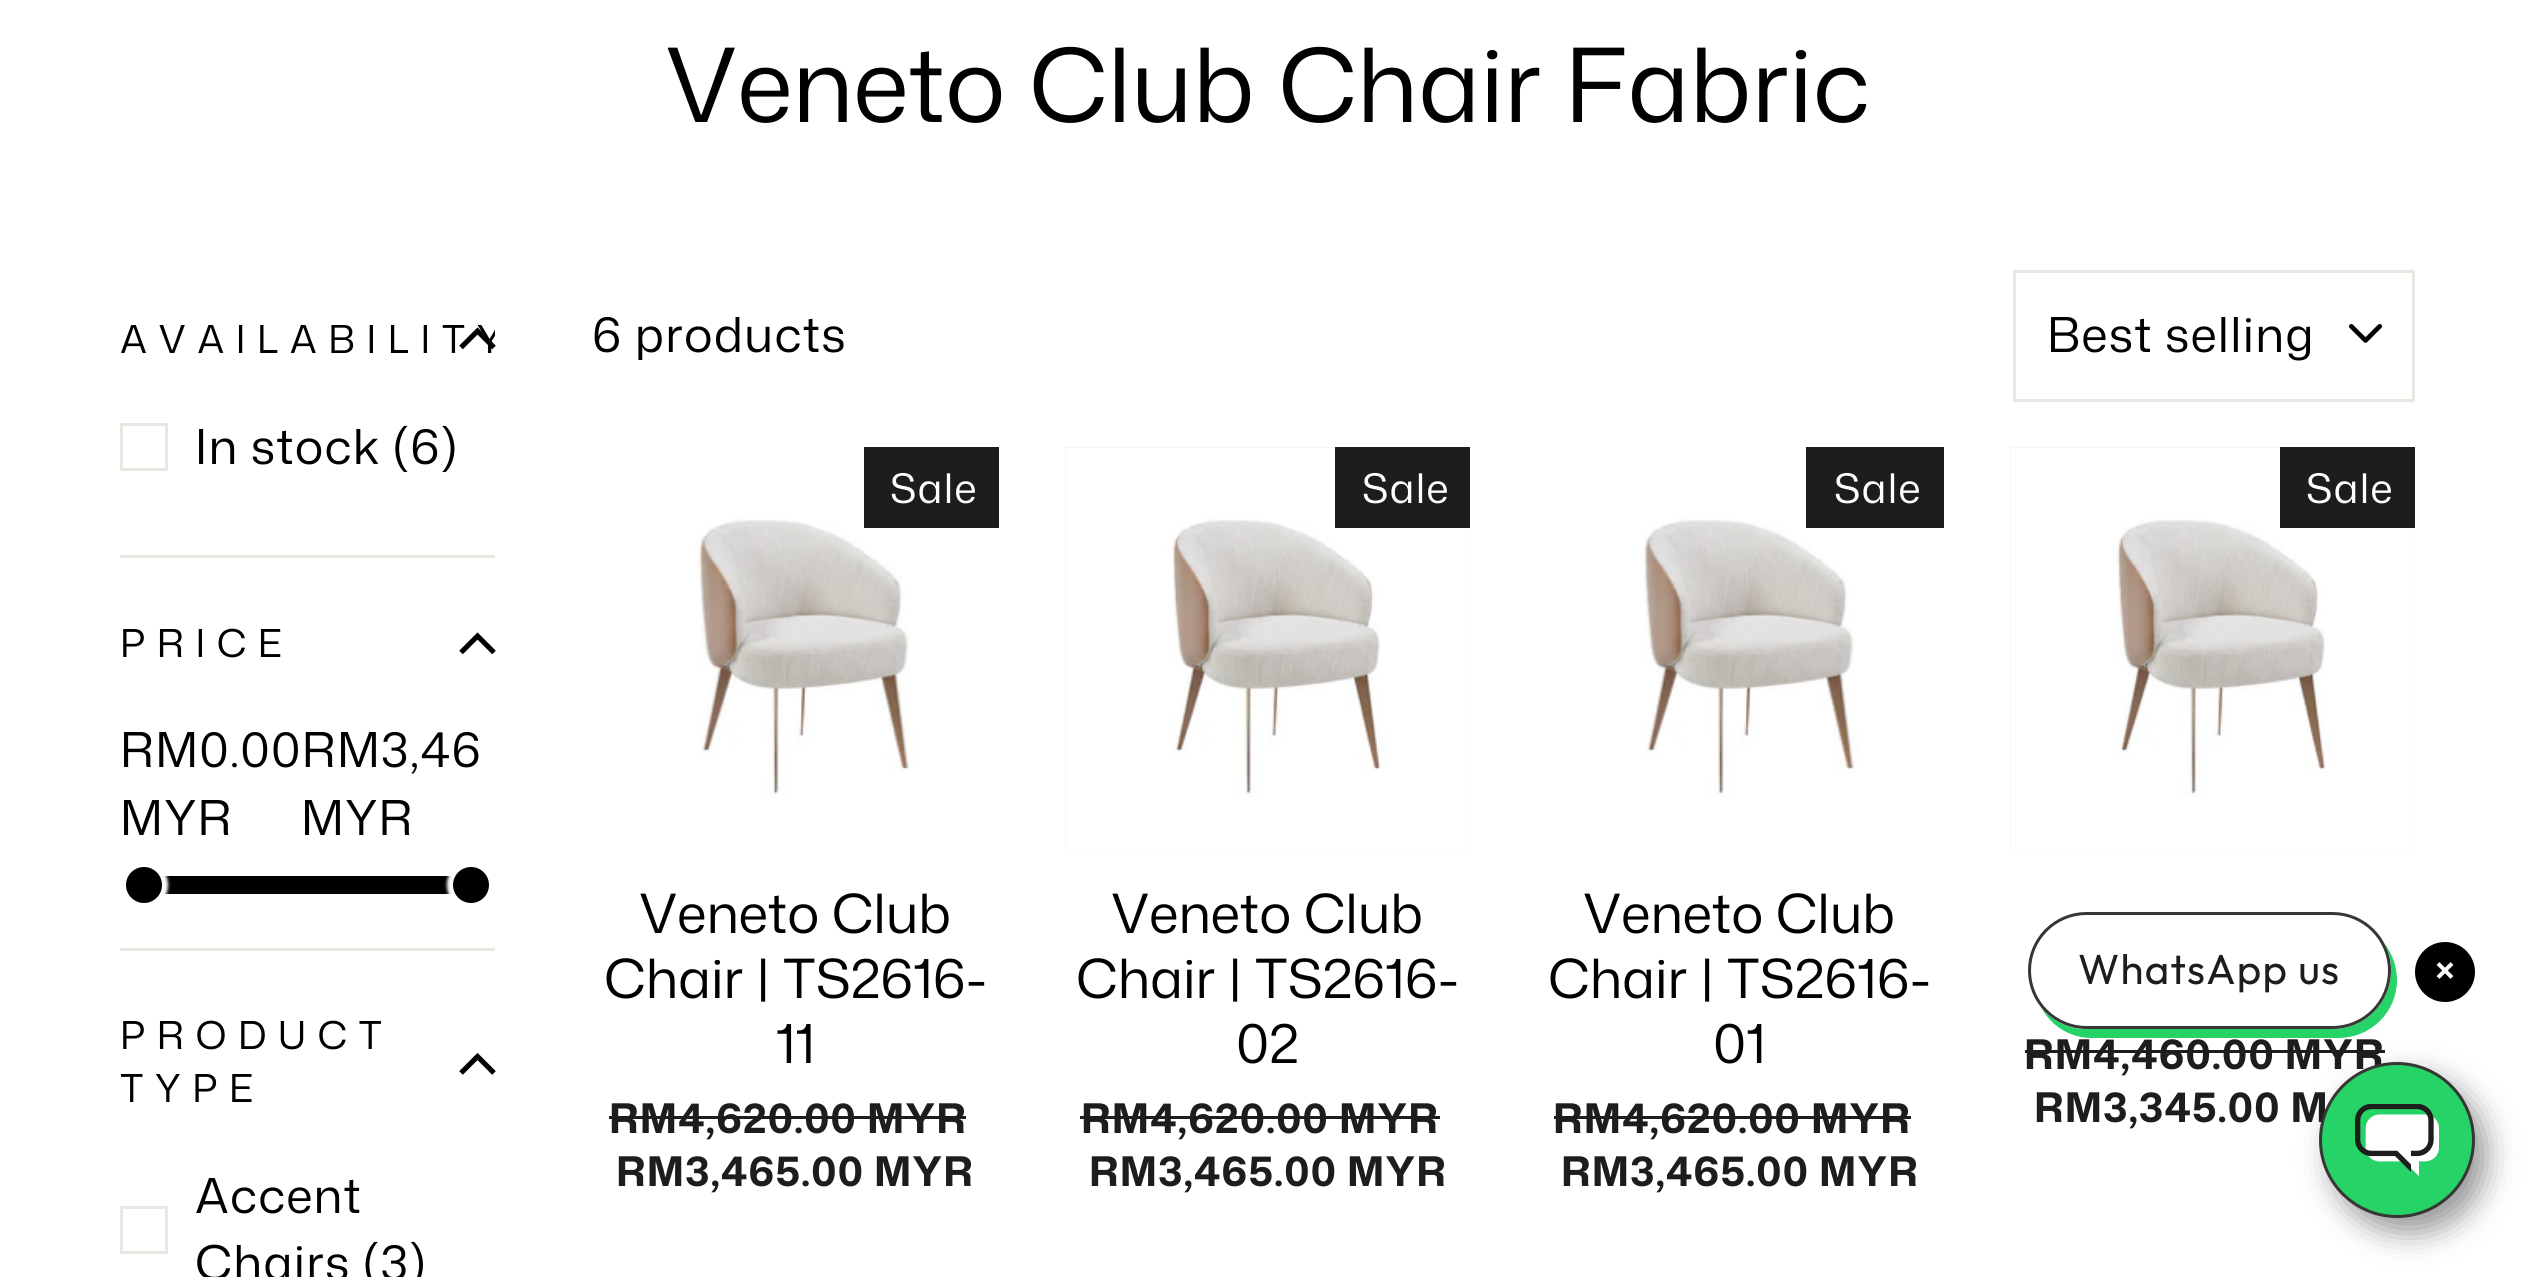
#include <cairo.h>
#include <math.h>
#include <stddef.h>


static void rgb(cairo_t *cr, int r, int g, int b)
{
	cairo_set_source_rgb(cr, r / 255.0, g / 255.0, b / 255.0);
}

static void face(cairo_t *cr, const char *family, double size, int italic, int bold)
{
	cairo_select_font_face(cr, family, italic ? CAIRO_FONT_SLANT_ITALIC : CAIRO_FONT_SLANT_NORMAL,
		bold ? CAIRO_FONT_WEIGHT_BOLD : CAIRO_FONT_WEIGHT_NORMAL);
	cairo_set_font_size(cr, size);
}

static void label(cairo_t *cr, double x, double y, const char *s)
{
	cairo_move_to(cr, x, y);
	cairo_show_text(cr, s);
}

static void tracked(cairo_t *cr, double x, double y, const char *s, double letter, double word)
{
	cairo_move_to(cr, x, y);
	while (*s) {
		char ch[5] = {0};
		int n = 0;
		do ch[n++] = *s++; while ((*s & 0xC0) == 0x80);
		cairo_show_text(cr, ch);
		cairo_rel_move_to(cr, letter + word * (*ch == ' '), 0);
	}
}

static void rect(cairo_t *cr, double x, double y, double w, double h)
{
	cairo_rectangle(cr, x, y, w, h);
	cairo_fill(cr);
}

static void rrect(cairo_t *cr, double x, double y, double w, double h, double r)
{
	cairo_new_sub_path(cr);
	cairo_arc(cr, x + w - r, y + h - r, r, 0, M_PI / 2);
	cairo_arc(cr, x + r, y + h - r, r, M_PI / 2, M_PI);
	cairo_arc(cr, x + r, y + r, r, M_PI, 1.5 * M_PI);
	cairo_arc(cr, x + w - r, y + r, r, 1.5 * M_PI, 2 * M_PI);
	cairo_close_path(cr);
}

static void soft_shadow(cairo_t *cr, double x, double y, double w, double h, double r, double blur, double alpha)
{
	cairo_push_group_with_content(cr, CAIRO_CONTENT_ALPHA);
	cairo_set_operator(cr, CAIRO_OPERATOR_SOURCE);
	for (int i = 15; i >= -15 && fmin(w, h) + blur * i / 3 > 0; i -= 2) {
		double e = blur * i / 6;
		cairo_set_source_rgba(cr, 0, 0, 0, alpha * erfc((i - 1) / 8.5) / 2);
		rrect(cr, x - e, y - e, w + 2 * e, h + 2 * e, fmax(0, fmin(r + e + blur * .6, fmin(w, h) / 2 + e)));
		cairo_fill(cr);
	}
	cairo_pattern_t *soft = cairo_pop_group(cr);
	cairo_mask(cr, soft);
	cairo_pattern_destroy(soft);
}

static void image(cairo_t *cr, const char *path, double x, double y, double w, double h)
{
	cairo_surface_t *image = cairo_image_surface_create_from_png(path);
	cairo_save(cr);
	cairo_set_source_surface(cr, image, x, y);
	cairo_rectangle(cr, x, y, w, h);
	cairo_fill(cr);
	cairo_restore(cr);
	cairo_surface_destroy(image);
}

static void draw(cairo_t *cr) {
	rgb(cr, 255, 255, 255);
	cairo_paint(cr);
	face(cr, "Mona Sans", 102, 0, 0);
	rgb(cr, 0, 0, 0);
	label(cr, 665, 122, "Veneto Club Chair Fabric");
	cairo_save(cr);
	cairo_rectangle(cr, 120, 270, 375, 270);
	cairo_clip(cr);
	face(cr, "Mona Sans", 38.4, 0, 0);
	tracked(cr, 120, 353, "AVAILABILITY", 11.5, 0);
	cairo_restore(cr);
	cairo_new_path(cr);
	cairo_move_to(cr, 461, 347.5);
	cairo_line_to(cr, 477.5, 331);
	cairo_line_to(cr, 494, 347.5);
	cairo_set_line_width(cr, 5.1);
	cairo_stroke(cr);
	cairo_rectangle(cr, 121.5, 424.5, 45, 45);
	rgb(cr, 232, 232, 225);
	cairo_set_line_width(cr, 3);
	cairo_stroke(cr);
	face(cr, "Mona Sans", 48, 0, 0);
	rgb(cr, 0, 0, 0);
	tracked(cr, 195, 464, "In stock (6)", 1.25, 0);
	rgb(cr, 232, 232, 225);
	rect(cr, 120, 555, 375, 3);
	face(cr, "Mona Sans", 38.4, 0, 0);
	rgb(cr, 0, 0, 0);
	tracked(cr, 120, 657, "PRICE", 11.5, 0);
	cairo_new_path(cr);
	cairo_move_to(cr, 461, 652.5);
	cairo_line_to(cr, 477.5, 636);
	cairo_line_to(cr, 494, 652.5);
	cairo_set_line_width(cr, 5.1);
	cairo_stroke(cr);
	face(cr, "Mona Sans", 48, 0, 0);
	tracked(cr, 120, 767, "RM0.00RM3,46", 1.25, 0);
	tracked(cr, 120, 835, "MYR", 1.25, 0);
	tracked(cr, 301, 835, "MYR", 1.25, 0);
	rect(cr, 162, 876, 294, 18);
	cairo_save(cr);
	cairo_rectangle(cr, 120, 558, 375, 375);
	cairo_clip(cr);
	cairo_set_fill_rule(cr, CAIRO_FILL_RULE_EVEN_ODD);
	cairo_new_path(cr);
	cairo_move_to(cr, 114, 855);
	cairo_line_to(cr, 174, 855);
	cairo_line_to(cr, 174, 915);
	cairo_line_to(cr, 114, 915);
	cairo_close_path(cr);
	cairo_move_to(cr, 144, 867);
	cairo_curve_to(cr, 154, 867, 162, 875, 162, 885);
	cairo_curve_to(cr, 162, 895, 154, 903, 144, 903);
	cairo_curve_to(cr, 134, 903, 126, 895, 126, 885);
	cairo_curve_to(cr, 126, 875, 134, 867, 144, 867);
	cairo_close_path(cr);
	cairo_clip(cr);
	rgb(cr, 255, 255, 255);
	soft_shadow(cr, 120, 861, 48, 48, 24, 1.5, 1);
	cairo_restore(cr);
	cairo_arc(cr, 144, 885, 18, 0, 2 * M_PI);
	cairo_fill(cr);
	cairo_save(cr);
	cairo_rectangle(cr, 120, 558, 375, 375);
	cairo_clip(cr);
	rgb(cr, 255, 255, 255);
	soft_shadow(cr, 447, 861, 48, 48, 24, 1.5, 1);
	cairo_restore(cr);
	cairo_arc(cr, 471, 885, 18, 0, 2 * M_PI);
	cairo_fill(cr);
	rgb(cr, 232, 232, 225);
	rect(cr, 120, 948, 375, 3);
	face(cr, "Mona Sans", 38.4, 0, 0);
	rgb(cr, 0, 0, 0);
	tracked(cr, 120, 1049, "PRODUCT", 11.5, 0);
	cairo_new_path(cr);
	cairo_move_to(cr, 461, 1073);
	cairo_line_to(cr, 477.5, 1056.5);
	cairo_line_to(cr, 494, 1073);
	cairo_stroke(cr);
	tracked(cr, 120, 1102, "TYPE", 11.5, 0);
	cairo_rectangle(cr, 121.5, 1207.5, 45, 45);
	rgb(cr, 232, 232, 225);
	cairo_set_line_width(cr, 3);
	cairo_stroke(cr);
	face(cr, "Mona Sans", 48, 0, 0);
	rgb(cr, 0, 0, 0);
	tracked(cr, 195, 1213, "Accent", 1.25, 0);
	tracked(cr, 195, 1280, "Chairs (3)", 1.25, 0);
	tracked(cr, 592, 352, "6 products", 1.25, 0);
	image(cr, "image0.png", 2349, 324, 33, 19);
	cairo_rectangle(cr, 2014.5, 271.5, 399, 129);
	rgb(cr, 232, 232, 225);
	cairo_stroke(cr);
	rgb(cr, 0, 0, 0);
	tracked(cr, 2047, 352, "Best selling", 1.25, 0);
	image(cr, "image1.png", 591, 447, 408, 405);
	rgb(cr, 28, 29, 29);
	rect(cr, 864, 447, 135, 81);
	face(cr, "Mona Sans", 40.75, 0, 0);
	rgb(cr, 255, 255, 255);
	tracked(cr, 890, 503, "Sale", 1.25, 0);
	face(cr, "Mona Sans", 54, 0, 0);
	rgb(cr, 0, 0, 0);
	label(cr, 639, 933, "Veneto Club");
	label(cr, 604, 998, "Chair | TS2616-");
	label(cr, 776, 1063, "11");
	face(cr, "Mona Sans", 40.75, 0, 1);
	rgb(cr, 28, 29, 29);
	tracked(cr, 609, 1133, "RM4,620.00 MYR", 1.25, 0);
	rect(cr, 609, 1116, 357, 3);
	tracked(cr, 616, 1186, "RM3,465.00 MYR", 1.25, 0);
	rgb(cr, 229, 229, 229);
	rect(cr, 1065, 447, 405, 405);
	image(cr, "image2.png", 1065, 447, 405, 405);
	rgb(cr, 28, 29, 29);
	rect(cr, 1335, 447, 135, 81);
	face(cr, "Mona Sans", 40.75, 0, 0);
	rgb(cr, 255, 255, 255);
	tracked(cr, 1362, 503, "Sale", 1.25, 0);
	face(cr, "Mona Sans", 54, 0, 0);
	rgb(cr, 0, 0, 0);
	label(cr, 1111, 933, "Veneto Club");
	label(cr, 1076, 998, "Chair | TS2616-");
	label(cr, 1236, 1063, "02");
	face(cr, "Mona Sans", 40.75, 0, 1);
	rgb(cr, 28, 29, 29);
	tracked(cr, 1081, 1133, "RM4,620.00 MYR", 1.25, 0);
	rect(cr, 1080, 1116, 360, 3);
	tracked(cr, 1089, 1186, "RM3,465.00 MYR", 1.25, 0);
	image(cr, "image1.png", 1536, 447, 408, 405);
	rect(cr, 1806, 447, 138, 81);
	face(cr, "Mona Sans", 40.75, 0, 0);
	rgb(cr, 255, 255, 255);
	tracked(cr, 1834, 503, "Sale", 1.25, 0);
	face(cr, "Mona Sans", 54, 0, 0);
	rgb(cr, 0, 0, 0);
	label(cr, 1583, 933, "Veneto Club");
	label(cr, 1548, 998, "Chair | TS2616-");
	label(cr, 1713, 1063, "01");
	face(cr, "Mona Sans", 40.75, 0, 1);
	rgb(cr, 28, 29, 29);
	tracked(cr, 1553, 1133, "RM4,620.00 MYR", 1.25, 0);
	rect(cr, 1554, 1116, 357, 3);
	tracked(cr, 1561, 1186, "RM3,465.00 MYR", 1.25, 0);
	rgb(cr, 229, 229, 229);
	rect(cr, 2010, 447, 405, 405);
	image(cr, "image2.png", 2010, 447, 405, 405);
	rgb(cr, 28, 29, 29);
	rect(cr, 2280, 447, 135, 81);
	face(cr, "Mona Sans", 40.75, 0, 0);
	rgb(cr, 255, 255, 255);
	tracked(cr, 2306, 503, "Sale", 1.25, 0);
	face(cr, "Mona Sans", 40.75, 0, 1);
	rgb(cr, 28, 29, 29);
	tracked(cr, 2024, 1069, "RM4,460.00 MYR", 1.25, 0);
	rect(cr, 2025, 1050, 360, 3);
	tracked(cr, 2034, 1122, "RM3,345.00 M", 1.25, 0);
	rgb(cr, 0, 0, 0);
	soft_shadow(cr, 2331, 1077, 156, 156, 78, 15, 0.4);
	rgb(cr, 37, 211, 102);
	cairo_new_path(cr);
	cairo_move_to(cr, 2041, 1007);
	cairo_curve_to(cr, 2051, 1026, 2070, 1038, 2092, 1038);
	cairo_line_to(cr, 2338, 1038);
	cairo_curve_to(cr, 2371, 1038, 2397, 1012, 2397, 980);
	cairo_curve_to(cr, 2397, 966, 2392, 953, 2384, 943);
	cairo_curve_to(cr, 2388, 951, 2391, 960, 2391, 970);
	cairo_curve_to(cr, 2391, 1003, 2365, 1029, 2332, 1029);
	cairo_line_to(cr, 2086, 1029);
	cairo_curve_to(cr, 2068, 1029, 2052, 1021, 2041, 1007);
	cairo_close_path(cr);
	cairo_fill(cr);
	rgb(cr, 255, 255, 255);
	rrect(cr, 2029.5, 913.5, 360, 114, 57);
	cairo_fill_preserve(cr);
	rgb(cr, 54, 54, 54);
	cairo_stroke(cr);
	face(cr, "Outfit", 42, 0, 0);
	rgb(cr, 28, 29, 29);
	tracked(cr, 2078, 984, "WhatsApp us", 1.25, 0);
	rgb(cr, 0, 0, 0);
	cairo_new_path(cr);
	cairo_arc(cr, 2445, 972, 30, 0, 2 * M_PI);
	cairo_fill(cr);
	cairo_new_path(cr);
	cairo_move_to(cr, 2438, 963.5);
	cairo_line_to(cr, 2452, 977.5);
	cairo_move_to(cr, 2438, 977.5);
	cairo_line_to(cr, 2452, 963.5);
	rgb(cr, 255, 255, 255);
	cairo_set_line_width(cr, 4);
	cairo_stroke(cr);
	rgb(cr, 37, 211, 102);
	cairo_arc(cr, 2397, 1140, 76.5, 0, 2 * M_PI);
	cairo_fill_preserve(cr);
	rgb(cr, 54, 54, 54);
	cairo_set_line_width(cr, 3);
	cairo_stroke(cr);
	image(cr, "image3.png", 2355, 1104, 84, 72);
}

int main(void) {
	cairo_surface_t *surface = cairo_image_surface_create(CAIRO_FORMAT_RGB24, 2534, 1277);
	cairo_t *cr = cairo_create(surface);
	cairo_font_options_t *options = cairo_font_options_create();
	cairo_font_options_set_hint_metrics(options, CAIRO_HINT_METRICS_OFF);
	cairo_font_options_set_hint_style(options, CAIRO_HINT_STYLE_NONE);
	cairo_set_font_options(cr, options);
	cairo_set_miter_limit(cr, 4);
	draw(cr);
	cairo_surface_write_to_png(surface, "render.png");
	cairo_font_options_destroy(options);
	cairo_destroy(cr);
	cairo_surface_destroy(surface);
	return 0;
}
